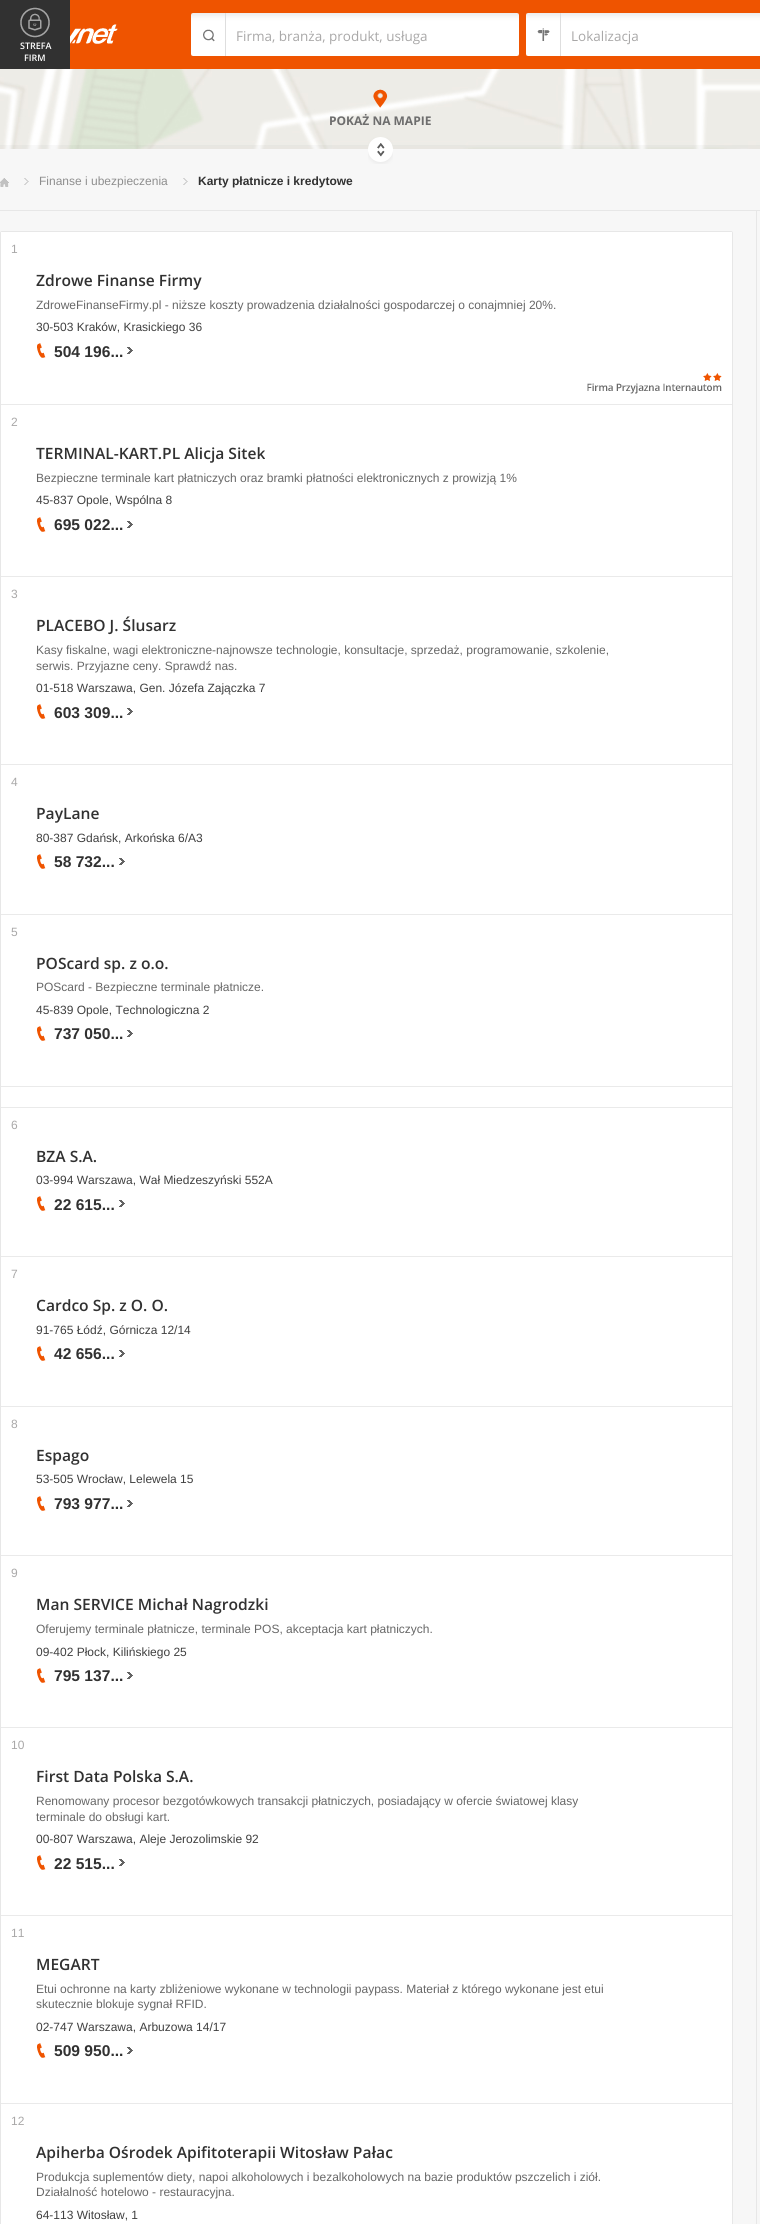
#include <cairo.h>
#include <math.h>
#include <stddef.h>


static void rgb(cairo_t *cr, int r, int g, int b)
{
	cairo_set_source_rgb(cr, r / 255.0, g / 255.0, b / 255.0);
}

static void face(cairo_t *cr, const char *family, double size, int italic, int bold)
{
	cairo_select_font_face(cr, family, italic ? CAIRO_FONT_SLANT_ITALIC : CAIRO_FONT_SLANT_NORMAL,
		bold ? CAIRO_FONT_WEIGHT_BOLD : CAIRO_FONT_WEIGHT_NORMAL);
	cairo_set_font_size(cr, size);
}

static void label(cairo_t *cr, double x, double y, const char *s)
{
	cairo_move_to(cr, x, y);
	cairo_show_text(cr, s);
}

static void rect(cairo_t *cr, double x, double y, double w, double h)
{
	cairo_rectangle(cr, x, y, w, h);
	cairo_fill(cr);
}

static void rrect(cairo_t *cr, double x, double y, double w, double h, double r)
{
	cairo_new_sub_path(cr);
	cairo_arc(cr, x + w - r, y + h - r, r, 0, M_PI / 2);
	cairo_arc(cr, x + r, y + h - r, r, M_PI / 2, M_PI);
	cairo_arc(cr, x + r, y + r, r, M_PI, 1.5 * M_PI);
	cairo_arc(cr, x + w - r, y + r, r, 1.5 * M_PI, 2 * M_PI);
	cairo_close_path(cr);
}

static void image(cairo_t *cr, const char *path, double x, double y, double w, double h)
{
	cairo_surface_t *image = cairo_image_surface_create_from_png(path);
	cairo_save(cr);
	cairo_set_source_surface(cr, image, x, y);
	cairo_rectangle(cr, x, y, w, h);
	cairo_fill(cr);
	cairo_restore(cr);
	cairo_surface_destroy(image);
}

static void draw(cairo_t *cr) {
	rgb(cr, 247, 247, 247);
	cairo_paint(cr);
	rgb(cr, 239, 84, 0);
	rect(cr, 70, 0, 690, 69);
	image(cr, "image0.png", 70, 24, 48, 20);
	image(cr, "image2.png", 191, 13, 328, 43);
	image(cr, "image1.png", 203, 29, 12, 13);
	rgb(cr, 222, 222, 222);
	rect(cr, 225, 13, 1, 43);
	face(cr, "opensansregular", 13.5, 0, 0);
	rgb(cr, 169, 168, 168);
	label(cr, 236, 41, "Firma, branża, produkt, usługa");
	image(cr, "image4.png", 526, 13, 234, 43);
	image(cr, "image3.png", 537, 28, 13, 13);
	rgb(cr, 222, 222, 222);
	rect(cr, 560, 13, 1, 43);
	rgb(cr, 169, 168, 168);
	label(cr, 571, 41, "Lokalizacja");
	rgb(cr, 49, 49, 49);
	rect(cr, 0, 0, 70, 69);
	image(cr, "image5.png", 20, 7, 30, 31);
	face(cr, "Open Sans SemiBold", 9, 0, 0);
	rgb(cr, 255, 255, 255);
	label(cr, 20, 49, "STREFA");
	label(cr, 24, 61, "FIRM");
	image(cr, "image6.png", 0, 69, 760, 80);
	image(cr, "image7.png", 373, 89, 15, 19);
	face(cr, "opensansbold", 12, 0, 1);
	rgb(cr, 109, 109, 109);
	label(cr, 329, 125, "POKAŻ NA MAPIE");
	cairo_set_source_rgba(cr, 0, 0, 0, 0.03);
	rect(cr, 0, 145, 760, 4);
	image(cr, "image8.png", 368, 137, 25, 27);
	rgb(cr, 231, 231, 231);
	rect(cr, 0, 210, 760, 1);
	image(cr, "image9.png", 0, 178, 9, 9);
	image(cr, "image10.png", 24, 178, 5, 7);
	face(cr, "Liberation Sans", 12, 0, 0);
	rgb(cr, 142, 142, 142);
	label(cr, 39, 185, "Finanse i ubezpieczenia");
	image(cr, "image10.png", 183, 178, 5, 7);
	face(cr, "Liberation Sans", 12, 0, 1);
	rgb(cr, 49, 49, 49);
	label(cr, 198, 185, "Karty płatnicze i kredytowe");
	rgb(cr, 231, 231, 231);
	rect(cr, 756, 211, 1, 2013);
	rrect(cr, 0.5, 231.5, 732, 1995, 1.5);
	cairo_set_line_width(cr, 1);
	cairo_stroke(cr);
	rgb(cr, 255, 255, 255);
	rect(cr, 1, 232, 731, 172);
	face(cr, "Liberation Sans", 12, 0, 0);
	rgb(cr, 169, 168, 168);
	label(cr, 11, 253, "1");
	face(cr, "Open Sans SemiBold", 15.6, 0, 0);
	rgb(cr, 49, 49, 49);
	label(cr, 36, 286, "Zdrowe Finanse Firmy");
	face(cr, "Liberation Sans", 12, 0, 0);
	rgb(cr, 103, 103, 103);
	label(cr, 36, 309, "ZdroweFinanseFirmy.pl - niższe koszty prowadzenia działalności gospodarczej o conajmniej 20%.");
	rgb(cr, 63, 63, 63);
	label(cr, 36, 331, "30-503 Kraków, Krasickiego 36");
	image(cr, "image11.png", 37, 343, 9, 15);
	face(cr, "Liberation Sans", 15.6, 0, 1);
	rgb(cr, 49, 49, 49);
	label(cr, 54, 357, "504 196...");
	image(cr, "image12.png", 127, 347, 6, 7);
	image(cr, "image13.png", 703, 373, 19, 8);
	image(cr, "image14.png", 587, 383, 135, 11);
	rgb(cr, 255, 255, 255);
	rect(cr, 1, 405, 731, 171);
	rgb(cr, 234, 234, 234);
	rect(cr, 1, 404, 731, 1);
	face(cr, "Liberation Sans", 12, 0, 0);
	rgb(cr, 169, 168, 168);
	label(cr, 11, 426, "2");
	face(cr, "Open Sans SemiBold", 15.6, 0, 0);
	rgb(cr, 49, 49, 49);
	label(cr, 36, 459, "TERMINAL-KART.PL Alicja Sitek");
	face(cr, "Liberation Sans", 12, 0, 0);
	rgb(cr, 103, 103, 103);
	label(cr, 36, 482, "Bezpieczne terminale kart płatniczych oraz bramki płatności elektronicznych z prowizją 1%");
	rgb(cr, 63, 63, 63);
	label(cr, 36, 504, "45-837 Opole, Wspólna 8");
	image(cr, "image11.png", 37, 517, 9, 15);
	face(cr, "Liberation Sans", 15.6, 0, 1);
	rgb(cr, 49, 49, 49);
	label(cr, 54, 530, "695 022...");
	image(cr, "image12.png", 127, 521, 6, 7);
	rgb(cr, 255, 255, 255);
	rect(cr, 1, 577, 731, 187);
	rgb(cr, 234, 234, 234);
	rect(cr, 1, 576, 731, 1);
	face(cr, "Liberation Sans", 12, 0, 0);
	rgb(cr, 169, 168, 168);
	label(cr, 11, 598, "3");
	face(cr, "Open Sans SemiBold", 15.6, 0, 0);
	rgb(cr, 49, 49, 49);
	label(cr, 36, 631, "PLACEBO J. Ślusarz");
	face(cr, "Liberation Sans", 12, 0, 0);
	rgb(cr, 103, 103, 103);
	label(cr, 36, 654, "Kasy fiskalne, wagi elektroniczne-najnowsze technologie, konsultacje, sprzedaż, programowanie, szkolenie,");
	label(cr, 36, 670, "serwis. Przyjazne ceny. Sprawdź nas.");
	rgb(cr, 63, 63, 63);
	label(cr, 36, 692, "01-518 Warszawa, Gen. Józefa Zajączka 7");
	image(cr, "image11.png", 37, 704, 9, 15);
	face(cr, "Liberation Sans", 15.6, 0, 1);
	rgb(cr, 49, 49, 49);
	label(cr, 54, 718, "603 309...");
	image(cr, "image12.png", 127, 708, 6, 7);
	rgb(cr, 255, 255, 255);
	rect(cr, 1, 765, 731, 149);
	rgb(cr, 234, 234, 234);
	rect(cr, 1, 764, 731, 1);
	face(cr, "Liberation Sans", 12, 0, 0);
	rgb(cr, 169, 168, 168);
	label(cr, 11, 786, "4");
	face(cr, "Open Sans SemiBold", 15.6, 0, 0);
	rgb(cr, 49, 49, 49);
	label(cr, 36, 819, "PayLane");
	face(cr, "Liberation Sans", 12, 0, 0);
	rgb(cr, 63, 63, 63);
	label(cr, 36, 842, "80-387 Gdańsk, Arkońska 6/A3");
	image(cr, "image11.png", 37, 854, 9, 15);
	face(cr, "Liberation Sans", 15.6, 0, 1);
	rgb(cr, 49, 49, 49);
	label(cr, 54, 867, "58 732...");
	image(cr, "image12.png", 119, 858, 6, 7);
	rgb(cr, 255, 255, 255);
	rect(cr, 1, 915, 731, 171);
	rgb(cr, 234, 234, 234);
	rect(cr, 1, 914, 731, 1);
	face(cr, "Liberation Sans", 12, 0, 0);
	rgb(cr, 169, 168, 168);
	label(cr, 11, 936, "5");
	face(cr, "Open Sans SemiBold", 15.6, 0, 0);
	rgb(cr, 49, 49, 49);
	label(cr, 36, 969, "POScard sp. z o.o.");
	face(cr, "Liberation Sans", 12, 0, 0);
	rgb(cr, 103, 103, 103);
	label(cr, 36, 991, "POScard - Bezpieczne terminale płatnicze.");
	rgb(cr, 63, 63, 63);
	label(cr, 36, 1014, "45-839 Opole, Technologiczna 2");
	image(cr, "image11.png", 37, 1026, 9, 15);
	face(cr, "Liberation Sans", 15.6, 0, 1);
	rgb(cr, 49, 49, 49);
	label(cr, 54, 1039, "737 050...");
	image(cr, "image12.png", 127, 1030, 6, 7);
	rgb(cr, 255, 255, 255);
	rect(cr, 1, 1087, 731, 20);
	rgb(cr, 234, 234, 234);
	rect(cr, 1, 1086, 731, 1);
	rgb(cr, 255, 255, 255);
	rect(cr, 1, 1108, 731, 148);
	rgb(cr, 234, 234, 234);
	rect(cr, 1, 1107, 731, 1);
	face(cr, "Liberation Sans", 12, 0, 0);
	rgb(cr, 169, 168, 168);
	label(cr, 11, 1129, "6");
	face(cr, "Open Sans SemiBold", 15.6, 0, 0);
	rgb(cr, 49, 49, 49);
	label(cr, 36, 1162, "BZA S.A.");
	face(cr, "Liberation Sans", 12, 0, 0);
	rgb(cr, 63, 63, 63);
	label(cr, 36, 1184, "03-994 Warszawa, Wał Miedzeszyński 552A");
	image(cr, "image11.png", 37, 1196, 9, 15);
	face(cr, "Liberation Sans", 15.6, 0, 1);
	rgb(cr, 49, 49, 49);
	label(cr, 54, 1210, "22 615...");
	image(cr, "image12.png", 119, 1200, 6, 7);
	rgb(cr, 255, 255, 255);
	rect(cr, 1, 1257, 731, 149);
	rgb(cr, 234, 234, 234);
	rect(cr, 1, 1256, 731, 1);
	face(cr, "Liberation Sans", 12, 0, 0);
	rgb(cr, 169, 168, 168);
	label(cr, 11, 1278, "7");
	face(cr, "Open Sans SemiBold", 15.6, 0, 0);
	rgb(cr, 49, 49, 49);
	label(cr, 36, 1311, "Cardco Sp. z O. O.");
	face(cr, "Liberation Sans", 12, 0, 0);
	rgb(cr, 63, 63, 63);
	label(cr, 36, 1334, "91-765 Łódź, Górnicza 12/14");
	image(cr, "image11.png", 37, 1346, 9, 15);
	face(cr, "Liberation Sans", 15.6, 0, 1);
	rgb(cr, 49, 49, 49);
	label(cr, 54, 1359, "42 656...");
	image(cr, "image12.png", 119, 1350, 6, 7);
	rgb(cr, 255, 255, 255);
	rect(cr, 1, 1407, 731, 148);
	rgb(cr, 234, 234, 234);
	rect(cr, 1, 1406, 731, 1);
	face(cr, "Liberation Sans", 12, 0, 0);
	rgb(cr, 169, 168, 168);
	label(cr, 11, 1428, "8");
	face(cr, "Open Sans SemiBold", 15.6, 0, 0);
	rgb(cr, 49, 49, 49);
	label(cr, 36, 1461, "Espago");
	face(cr, "Liberation Sans", 12, 0, 0);
	rgb(cr, 63, 63, 63);
	label(cr, 36, 1483, "53-505 Wrocław, Lelewela 15");
	image(cr, "image11.png", 37, 1496, 9, 15);
	face(cr, "Liberation Sans", 15.6, 0, 1);
	rgb(cr, 49, 49, 49);
	label(cr, 54, 1509, "793 977...");
	image(cr, "image12.png", 127, 1500, 6, 7);
	rgb(cr, 255, 255, 255);
	rect(cr, 1, 1556, 731, 171);
	rgb(cr, 234, 234, 234);
	rect(cr, 1, 1555, 731, 1);
	face(cr, "Liberation Sans", 12, 0, 0);
	rgb(cr, 169, 168, 168);
	label(cr, 11, 1577, "9");
	face(cr, "Open Sans SemiBold", 15.6, 0, 0);
	rgb(cr, 49, 49, 49);
	label(cr, 36, 1610, "Man SERVICE Michał Nagrodzki");
	face(cr, "Liberation Sans", 12, 0, 0);
	rgb(cr, 103, 103, 103);
	label(cr, 36, 1633, "Oferujemy terminale płatnicze, terminale POS, akceptacja kart płatniczych.");
	rgb(cr, 63, 63, 63);
	label(cr, 36, 1656, "09-402 Płock, Kilińskiego 25");
	image(cr, "image11.png", 37, 1668, 9, 15);
	face(cr, "Liberation Sans", 15.6, 0, 1);
	rgb(cr, 49, 49, 49);
	label(cr, 54, 1681, "795 137...");
	image(cr, "image12.png", 127, 1672, 6, 7);
	rgb(cr, 255, 255, 255);
	rect(cr, 1, 1728, 731, 187);
	rgb(cr, 234, 234, 234);
	rect(cr, 1, 1727, 731, 1);
	face(cr, "Liberation Sans", 12, 0, 0);
	rgb(cr, 169, 168, 168);
	label(cr, 11, 1749, "10");
	face(cr, "Open Sans SemiBold", 15.6, 0, 0);
	rgb(cr, 49, 49, 49);
	label(cr, 36, 1782, "First Data Polska S.A.");
	face(cr, "Liberation Sans", 12, 0, 0);
	rgb(cr, 103, 103, 103);
	label(cr, 36, 1805, "Renomowany procesor bezgotówkowych transakcji płatniczych, posiadający w ofercie światowej klasy");
	label(cr, 36, 1821, "terminale do obsługi kart.");
	rgb(cr, 63, 63, 63);
	label(cr, 36, 1843, "00-807 Warszawa, Aleje Jerozolimskie 92");
	image(cr, "image11.png", 37, 1855, 9, 15);
	face(cr, "Liberation Sans", 15.6, 0, 1);
	rgb(cr, 49, 49, 49);
	label(cr, 54, 1869, "22 515...");
	image(cr, "image12.png", 119, 1859, 6, 7);
	rgb(cr, 255, 255, 255);
	rect(cr, 1, 1916, 731, 187);
	rgb(cr, 234, 234, 234);
	rect(cr, 1, 1915, 731, 1);
	face(cr, "Liberation Sans", 12, 0, 0);
	rgb(cr, 169, 168, 168);
	label(cr, 11, 1937, "11");
	face(cr, "Open Sans SemiBold", 15.6, 0, 0);
	rgb(cr, 49, 49, 49);
	label(cr, 36, 1970, "MEGART");
	face(cr, "Liberation Sans", 12, 0, 0);
	rgb(cr, 103, 103, 103);
	label(cr, 36, 1993, "Etui ochronne na karty zbliżeniowe wykonane w technologii paypass. Materiał z którego wykonane jest etui");
	label(cr, 36, 2008, "skutecznie blokuje sygnał RFID.");
	rgb(cr, 63, 63, 63);
	label(cr, 36, 2031, "02-747 Warszawa, Arbuzowa 14/17");
	image(cr, "image11.png", 37, 2043, 9, 15);
	face(cr, "Liberation Sans", 15.6, 0, 1);
	rgb(cr, 49, 49, 49);
	label(cr, 54, 2056, "509 950...");
	image(cr, "image12.png", 127, 2047, 6, 7);
	rgb(cr, 255, 255, 255);
	rect(cr, 1, 2104, 731, 120);
	rgb(cr, 234, 234, 234);
	rect(cr, 1, 2103, 731, 1);
	face(cr, "Liberation Sans", 12, 0, 0);
	rgb(cr, 169, 168, 168);
	label(cr, 11, 2125, "12");
	face(cr, "Open Sans SemiBold", 15.6, 0, 0);
	rgb(cr, 49, 49, 49);
	label(cr, 36, 2158, "Apiherba Ośrodek Apifitoterapii Witosław Pałac");
	face(cr, "Liberation Sans", 12, 0, 0);
	rgb(cr, 103, 103, 103);
	label(cr, 36, 2181, "Produkcja suplementów diety, napoi alkoholowych i bezalkoholowych na bazie produktów pszczelich i ziół.");
	label(cr, 36, 2196, "Działalność hotelowo - restauracyjna.");
	rgb(cr, 63, 63, 63);
	label(cr, 36, 2219, "64-113 Witosław, 1");
}

int main(void) {
	cairo_surface_t *surface = cairo_image_surface_create(CAIRO_FORMAT_RGB24, 760, 2224);
	cairo_t *cr = cairo_create(surface);
	cairo_font_options_t *options = cairo_font_options_create();
	cairo_font_options_set_hint_metrics(options, CAIRO_HINT_METRICS_OFF);
	cairo_font_options_set_hint_style(options, CAIRO_HINT_STYLE_NONE);
	cairo_set_font_options(cr, options);
	cairo_set_miter_limit(cr, 4);
	draw(cr);
	cairo_surface_write_to_png(surface, "render.png");
	cairo_font_options_destroy(options);
	cairo_destroy(cr);
	cairo_surface_destroy(surface);
	return 0;
}
